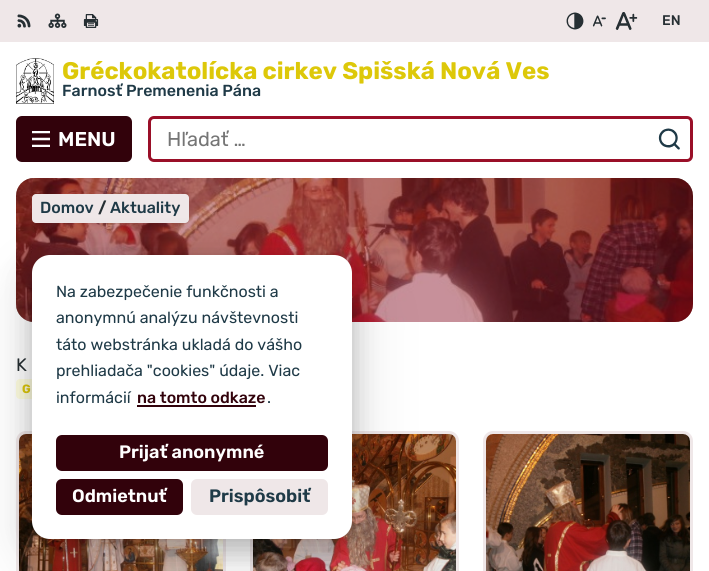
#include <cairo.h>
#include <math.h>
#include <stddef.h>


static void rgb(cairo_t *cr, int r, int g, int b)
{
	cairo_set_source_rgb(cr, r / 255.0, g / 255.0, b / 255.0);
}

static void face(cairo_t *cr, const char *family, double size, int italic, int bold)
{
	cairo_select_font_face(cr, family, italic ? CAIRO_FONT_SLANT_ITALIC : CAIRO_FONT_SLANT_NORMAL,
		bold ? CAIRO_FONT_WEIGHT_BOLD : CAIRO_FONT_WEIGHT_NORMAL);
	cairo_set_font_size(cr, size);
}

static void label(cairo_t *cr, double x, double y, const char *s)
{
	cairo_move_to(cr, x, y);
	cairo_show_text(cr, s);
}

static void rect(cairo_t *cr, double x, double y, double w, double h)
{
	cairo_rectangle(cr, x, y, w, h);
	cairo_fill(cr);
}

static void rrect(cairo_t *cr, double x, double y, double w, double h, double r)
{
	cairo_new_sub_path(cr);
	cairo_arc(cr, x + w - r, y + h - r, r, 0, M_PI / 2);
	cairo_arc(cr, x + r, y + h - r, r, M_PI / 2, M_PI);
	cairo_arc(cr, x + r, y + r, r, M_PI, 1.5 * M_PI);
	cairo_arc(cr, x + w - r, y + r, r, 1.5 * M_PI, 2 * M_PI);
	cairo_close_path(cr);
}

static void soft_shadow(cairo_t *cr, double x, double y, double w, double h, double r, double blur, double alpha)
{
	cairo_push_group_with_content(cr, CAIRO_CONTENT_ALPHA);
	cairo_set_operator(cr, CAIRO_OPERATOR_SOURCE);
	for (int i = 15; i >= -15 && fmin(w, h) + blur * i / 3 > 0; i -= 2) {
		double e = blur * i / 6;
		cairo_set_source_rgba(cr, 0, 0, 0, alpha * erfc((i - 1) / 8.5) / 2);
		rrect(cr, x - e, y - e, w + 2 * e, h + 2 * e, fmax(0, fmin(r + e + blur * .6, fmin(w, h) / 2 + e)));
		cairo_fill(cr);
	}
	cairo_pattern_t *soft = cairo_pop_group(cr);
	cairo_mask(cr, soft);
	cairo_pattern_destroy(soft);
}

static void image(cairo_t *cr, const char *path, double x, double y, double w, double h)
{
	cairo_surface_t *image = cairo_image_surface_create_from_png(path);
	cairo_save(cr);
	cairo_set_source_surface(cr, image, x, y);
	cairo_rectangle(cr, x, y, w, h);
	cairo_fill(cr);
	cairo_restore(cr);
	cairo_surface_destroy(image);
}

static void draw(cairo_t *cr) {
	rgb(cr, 255, 255, 255);
	cairo_paint(cr);
	rgb(cr, 239, 231, 232);
	rect(cr, 0, 0, 709, 42);
	image(cr, "image0.png", 17, 14, 14, 14);
	image(cr, "image1.png", 48, 13, 19, 15);
	image(cr, "image2.png", 83, 14, 16, 14);
	image(cr, "image3.png", 566, 12, 18, 18);
	image(cr, "image4.png", 592, 15, 14, 12);
	image(cr, "image5.png", 615, 12, 23, 18);
	face(cr, "Rubik Medium", 14, 0, 0);
	rgb(cr, 38, 47, 51);
	label(cr, 662, 25, "EN");
	image(cr, "image6.png", 16, 58, 38, 46);
	face(cr, "Rubik", 24, 0, 1);
	rgb(cr, 221, 200, 9);
	label(cr, 62, 79, "Gréckokatolícka cirkev Spišská Nová Ves");
	face(cr, "Rubik Medium", 16, 0, 0);
	rgb(cr, 31, 58, 71);
	label(cr, 62, 96, "Farnosť Premenenia Pána");
	rgb(cr, 50, 2, 11);
	rrect(cr, 16, 116, 116, 46, 6);
	cairo_fill(cr);
	image(cr, "image7.png", 32, 131, 18, 16);
	face(cr, "Rubik SemiBold", 20, 0, 0);
	rgb(cr, 255, 255, 255);
	label(cr, 58, 146, "MENU");
	rrect(cr, 149.5, 117.5, 542, 43, 4.5);
	rgb(cr, 154, 15, 40);
	cairo_set_line_width(cr, 3);
	cairo_stroke(cr);
	face(cr, "Rubik", 20, 0, 0);
	rgb(cr, 117, 117, 117);
	label(cr, 167, 146, "Hľadať …");
	image(cr, "image8.png", 658, 128, 22, 22);
	image(cr, "image9.png", 16, 178, 677, 144);
	cairo_set_source_rgba(cr, 0.604, 0.059, 0.157, 0.4);
	rrect(cr, 16, 178, 677, 144, 18);
	cairo_fill(cr);
	rgb(cr, 239, 231, 232);
	rrect(cr, 32, 194, 157, 29, 4);
	cairo_fill(cr);
	face(cr, "Rubik Medium", 16, 0, 0);
	rgb(cr, 31, 58, 71);
	label(cr, 40, 213, "Domov");
	face(cr, "Rubik", 16, 0, 1);
	rgb(cr, 38, 47, 51);
	label(cr, 98, 213, "/");
	face(cr, "Rubik Medium", 16, 0, 0);
	rgb(cr, 31, 58, 71);
	label(cr, 110, 213, "Aktuality");
	face(cr, "Rubik", 18, 0, 0);
	rgb(cr, 38, 47, 51);
	label(cr, 16, 371, "K");
	rgb(cr, 255, 254, 224);
	rrect(cr, 16, 379, 65, 20, 4);
	cairo_fill(cr);
	face(cr, "Rubik", 12, 0, 1);
	rgb(cr, 221, 200, 9);
	label(cr, 22, 393, "G");
	rrect(cr, 17.5, 432.5, 207, 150, 8.5);
	rgb(cr, 239, 231, 232);
	cairo_stroke(cr);
	image(cr, "image10.png", 19, 434, 204, 137);
	rrect(cr, 251.5, 432.5, 206, 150, 8.5);
	cairo_stroke(cr);
	image(cr, "image11.png", 253, 434, 203, 137);
	rrect(cr, 484.5, 432.5, 207, 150, 8.5);
	cairo_stroke(cr);
	image(cr, "image12.png", 486, 434, 204, 137);
	rgb(cr, 0, 0, 0);
	soft_shadow(cr, 32, 285, 320, 284, 18, 45, 0.05);
	soft_shadow(cr, 32, 275, 320, 284, 18, 30, 0.05);
	soft_shadow(cr, 32, 265, 320, 284, 18, 15, 0.25);
	rgb(cr, 255, 255, 255);
	rrect(cr, 32, 255, 320, 284, 18);
	cairo_fill(cr);
	face(cr, "Rubik", 16, 0, 0);
	rgb(cr, 31, 58, 71);
	label(cr, 56, 297, "Na zabezpečenie funkčnosti a");
	label(cr, 56, 323, "anonymnú analýzu návštevnosti");
	label(cr, 56, 350, "táto webstránka ukladá do vášho");
	label(cr, 56, 376, "prehliadača \"cookies\" údaje. Viac");
	label(cr, 56, 403, "informácií");
	face(cr, "Rubik Medium", 16, 0, 0);
	rgb(cr, 50, 2, 11);
	label(cr, 137, 403, "na tomto odkaze");
	rect(cr, 137, 405, 119, 2);
	face(cr, "Rubik", 16, 0, 0);
	rgb(cr, 31, 58, 71);
	label(cr, 267, 403, ".");
	rgb(cr, 50, 2, 11);
	rrect(cr, 56, 435, 272, 36, 6);
	cairo_fill(cr);
	face(cr, "Rubik SemiBold", 18, 0, 0);
	rgb(cr, 255, 255, 255);
	label(cr, 119, 458, "Prijať anonymné");
	rgb(cr, 50, 2, 11);
	rrect(cr, 56, 479, 127, 36, 6);
	cairo_fill(cr);
	rgb(cr, 255, 255, 255);
	label(cr, 72, 502, "Odmietnuť");
	rgb(cr, 239, 231, 232);
	rrect(cr, 191, 479, 137, 36, 6);
	cairo_fill(cr);
	rgb(cr, 31, 58, 71);
	label(cr, 209, 502, "Prispôsobiť");
}

int main(void) {
	cairo_surface_t *surface = cairo_image_surface_create(CAIRO_FORMAT_RGB24, 709, 571);
	cairo_t *cr = cairo_create(surface);
	cairo_font_options_t *options = cairo_font_options_create();
	cairo_font_options_set_hint_metrics(options, CAIRO_HINT_METRICS_OFF);
	cairo_font_options_set_hint_style(options, CAIRO_HINT_STYLE_NONE);
	cairo_set_font_options(cr, options);
	cairo_set_miter_limit(cr, 4);
	draw(cr);
	cairo_surface_write_to_png(surface, "render.png");
	cairo_font_options_destroy(options);
	cairo_destroy(cr);
	cairo_surface_destroy(surface);
	return 0;
}
